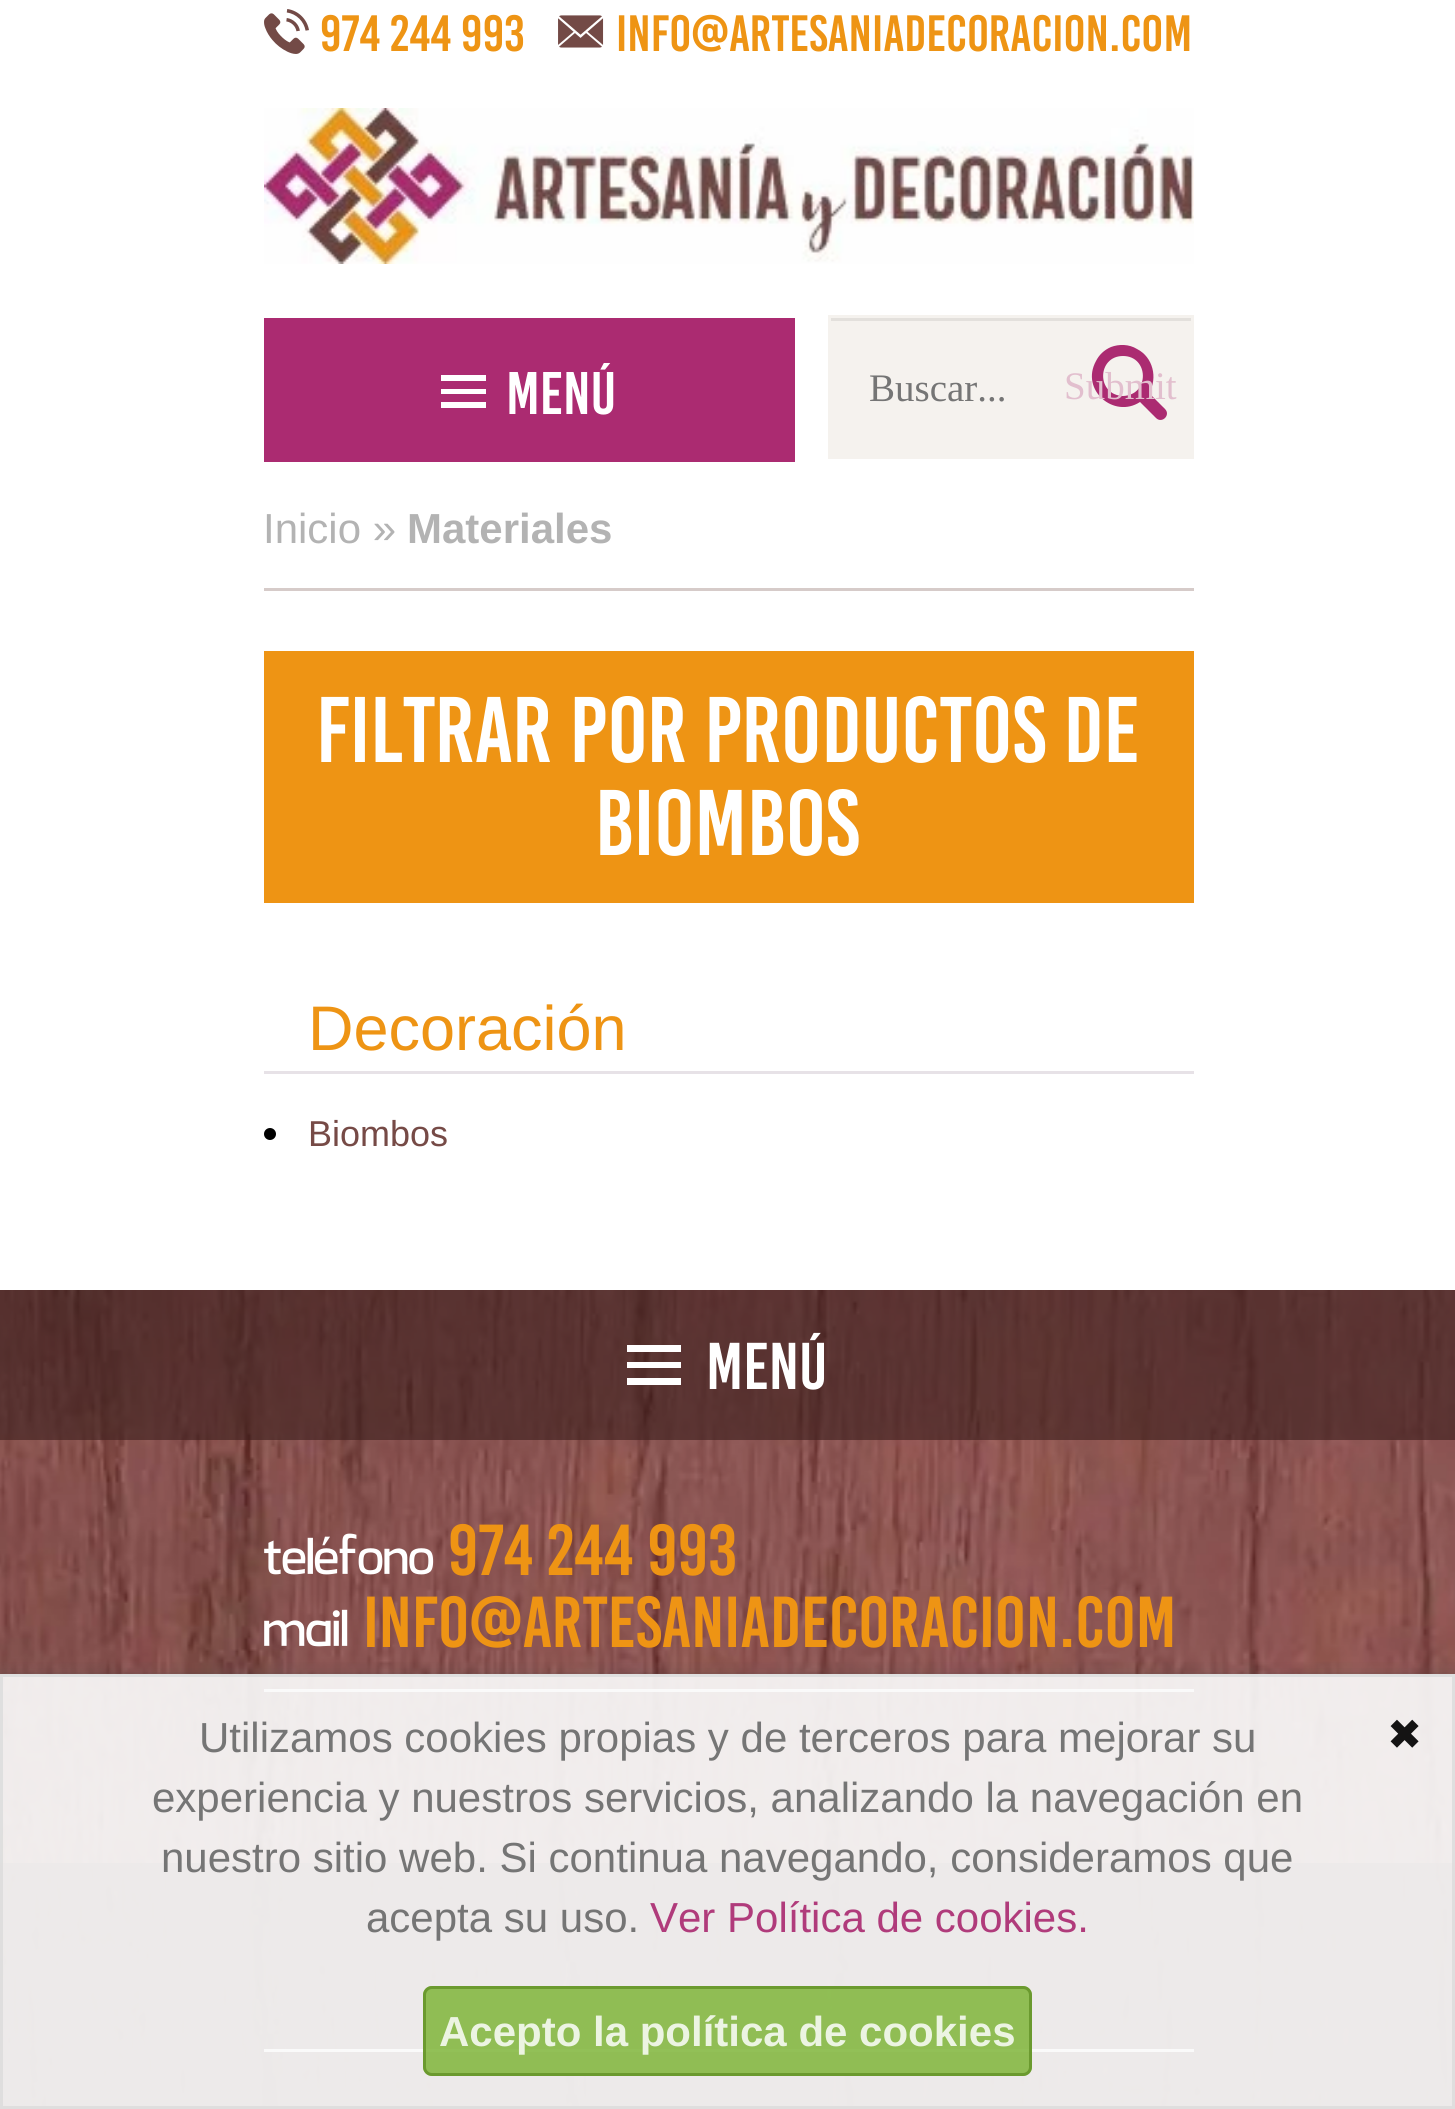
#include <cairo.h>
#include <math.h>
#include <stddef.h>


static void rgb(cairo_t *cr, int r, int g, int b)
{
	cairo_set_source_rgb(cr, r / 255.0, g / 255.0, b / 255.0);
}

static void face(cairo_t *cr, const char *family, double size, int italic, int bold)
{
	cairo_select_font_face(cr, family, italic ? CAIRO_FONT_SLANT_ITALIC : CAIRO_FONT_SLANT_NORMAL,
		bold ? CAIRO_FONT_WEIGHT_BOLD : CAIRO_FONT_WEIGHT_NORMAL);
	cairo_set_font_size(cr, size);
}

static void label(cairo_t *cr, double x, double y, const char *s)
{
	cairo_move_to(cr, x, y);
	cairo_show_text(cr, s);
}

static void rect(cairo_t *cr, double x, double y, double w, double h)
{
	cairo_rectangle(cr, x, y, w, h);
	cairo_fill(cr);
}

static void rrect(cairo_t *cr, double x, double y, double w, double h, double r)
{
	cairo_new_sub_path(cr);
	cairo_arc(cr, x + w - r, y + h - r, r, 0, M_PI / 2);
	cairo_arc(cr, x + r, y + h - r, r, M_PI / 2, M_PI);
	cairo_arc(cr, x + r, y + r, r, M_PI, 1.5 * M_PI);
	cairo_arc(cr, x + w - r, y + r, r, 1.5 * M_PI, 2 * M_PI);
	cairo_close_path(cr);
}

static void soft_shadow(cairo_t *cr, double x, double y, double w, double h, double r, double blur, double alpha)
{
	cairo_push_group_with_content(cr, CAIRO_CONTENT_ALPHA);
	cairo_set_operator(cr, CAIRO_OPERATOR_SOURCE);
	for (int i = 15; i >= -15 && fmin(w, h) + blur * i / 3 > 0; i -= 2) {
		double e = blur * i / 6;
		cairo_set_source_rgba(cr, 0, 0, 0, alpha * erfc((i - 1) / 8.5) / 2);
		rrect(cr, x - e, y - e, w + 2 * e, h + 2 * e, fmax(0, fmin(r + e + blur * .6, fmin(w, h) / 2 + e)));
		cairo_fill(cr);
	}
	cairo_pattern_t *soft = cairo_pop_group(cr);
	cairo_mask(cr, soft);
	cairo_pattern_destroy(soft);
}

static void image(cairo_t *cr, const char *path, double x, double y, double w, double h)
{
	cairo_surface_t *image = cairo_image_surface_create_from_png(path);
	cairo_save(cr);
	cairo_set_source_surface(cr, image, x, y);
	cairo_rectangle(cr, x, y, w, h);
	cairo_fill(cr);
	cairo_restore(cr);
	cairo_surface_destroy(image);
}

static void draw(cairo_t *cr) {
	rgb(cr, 255, 255, 255);
	cairo_paint(cr);
	image(cr, "image0.png", 264, 9, 45, 45);
	face(cr, "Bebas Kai", 51, 0, 0);
	rgb(cr, 238, 148, 20);
	label(cr, 320, 51, "974 244 993");
	image(cr, "image1.png", 558, 15, 46, 33);
	label(cr, 616, 51, "info@artesaniadecoracion.com");
	rgb(cr, 245, 242, 238);
	rect(cr, 828, 315, 366, 144);
	rgb(cr, 171, 43, 113);
	cairo_new_path(cr);
	cairo_move_to(cr, 1165, 409);
	cairo_line_to(cr, 1149, 393);
	cairo_curve_to(cr, 1158, 378, 1153, 357, 1137, 349);
	cairo_curve_to(cr, 1129, 344, 1119, 344, 1111, 347);
	cairo_curve_to(cr, 1104, 350, 1099, 355, 1096, 361);
	cairo_curve_to(cr, 1080, 390, 1114, 419, 1140, 402);
	cairo_line_to(cr, 1156, 418);
	cairo_curve_to(cr, 1162, 424, 1171, 415, 1165, 409);
	cairo_close_path(cr);
	cairo_move_to(cr, 1123, 396);
	cairo_curve_to(cr, 1096, 395, 1097, 356, 1123, 356);
	cairo_curve_to(cr, 1149, 356, 1150, 395, 1123, 396);
	cairo_close_path(cr);
	cairo_fill(cr);
	rgb(cr, 227, 224, 220);
	rect(cr, 831, 318, 360, 3);
	cairo_save(cr);
	cairo_rectangle(cr, 870, 366, 201, 48);
	cairo_clip(cr);
	face(cr, "Liberation Serif", 39, 0, 0);
	rgb(cr, 117, 117, 117);
	label(cr, 869, 401, "Buscar...");
	cairo_restore(cr);
	face(cr, "Liberation Serif", 39, 0, 0);
	rgb(cr, 226, 191, 206);
	label(cr, 1064, 399, "Submit");
	image(cr, "image2.png", 264, 108, 930, 156);
	rgb(cr, 171, 43, 113);
	rect(cr, 264, 318, 531, 144);
	rgb(cr, 255, 255, 255);
	cairo_new_path(cr);
	cairo_move_to(cr, 486, 381);
	cairo_line_to(cr, 441, 381);
	cairo_line_to(cr, 441, 375);
	cairo_line_to(cr, 486, 375);
	cairo_close_path(cr);
	cairo_move_to(cr, 486, 389);
	cairo_line_to(cr, 441, 389);
	cairo_line_to(cr, 441, 394);
	cairo_line_to(cr, 486, 394);
	cairo_close_path(cr);
	cairo_move_to(cr, 486, 402);
	cairo_line_to(cr, 441, 402);
	cairo_line_to(cr, 441, 408);
	cairo_line_to(cr, 486, 408);
	cairo_close_path(cr);
	cairo_fill(cr);
	face(cr, "Bebas Kai", 60, 0, 0);
	label(cr, 506, 414, "Menú");
	rgb(cr, 214, 203, 201);
	rect(cr, 264, 588, 930, 3);
	face(cr, "Liberation Sans", 42, 0, 0);
	rgb(cr, 179, 179, 179);
	label(cr, 263, 543, "Inicio »");
	face(cr, "Liberation Sans", 42, 0, 1);
	label(cr, 407, 543, "Materiales");
	rgb(cr, 238, 148, 20);
	rect(cr, 264, 651, 930, 252);
	face(cr, "Bebas Kai", 93, 0, 0);
	rgb(cr, 255, 255, 255);
	label(cr, 316, 762, "Filtrar por Productos de");
	label(cr, 595, 855, "biombos");
	rgb(cr, 231, 226, 231);
	rect(cr, 264, 1071, 930, 3);
	face(cr, "Liberation Sans", 63, 0, 0);
	rgb(cr, 238, 148, 20);
	label(cr, 308, 1050, "Decoración");
	rgb(cr, 0, 0, 0);
	cairo_new_path(cr);
	cairo_arc(cr, 270, 1134, 6, 0, 2 * M_PI);
	cairo_fill(cr);
	face(cr, "Liberation Sans", 36, 0, 0);
	rgb(cr, 118, 74, 70);
	label(cr, 308, 1146, "Biombos");
	image(cr, "image3.png", 0, 1290, 1455, 819);
	cairo_set_source_rgba(cr, 0.235, 0.125, 0.118, 0.62);
	rect(cr, 0, 1290, 1455, 150);
	rgb(cr, 255, 255, 255);
	cairo_new_path(cr);
	cairo_move_to(cr, 681, 1352);
	cairo_line_to(cr, 627, 1352);
	cairo_line_to(cr, 627, 1345);
	cairo_line_to(cr, 681, 1345);
	cairo_close_path(cr);
	cairo_move_to(cr, 681, 1362);
	cairo_line_to(cr, 627, 1362);
	cairo_line_to(cr, 627, 1368);
	cairo_line_to(cr, 681, 1368);
	cairo_close_path(cr);
	cairo_move_to(cr, 681, 1378);
	cairo_line_to(cr, 627, 1378);
	cairo_line_to(cr, 627, 1385);
	cairo_line_to(cr, 681, 1385);
	cairo_close_path(cr);
	cairo_fill(cr);
	face(cr, "Bebas Kai", 66, 0, 0);
	label(cr, 706, 1389, "MENÚ");
	rect(cr, 264, 1689, 930, 3);
	face(cr, "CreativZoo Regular", 60, 0, 0);
	label(cr, 263, 1587, "teléfono");
	face(cr, "Bebas Kai", 72, 0, 0);
	rgb(cr, 238, 148, 20);
	label(cr, 448, 1575, "974 244 993");
	face(cr, "CreativZoo Regular", 60, 0, 0);
	rgb(cr, 255, 255, 255);
	label(cr, 263, 1659, "mail");
	face(cr, "Bebas Kai", 72, 0, 0);
	rgb(cr, 238, 148, 20);
	label(cr, 363, 1647, "info@artesaniadecoracion.com");
	cairo_set_source_rgba(cr, 0.235, 0.125, 0.118, 0.62);
	rect(cr, 0, 1863, 1455, 246);
	rgb(cr, 255, 255, 255);
	rect(cr, 264, 2049, 930, 3);
	cairo_save(cr);
	cairo_rectangle(cr, 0, 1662, 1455, 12);
	cairo_clip(cr);
	rgb(cr, 68, 68, 68);
	soft_shadow(cr, 0, 1686, 1455, 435, 0, 12, 0.92);
	cairo_restore(cr);
	cairo_set_source_rgba(cr, 0.98, 0.98, 0.98, 0.92);
	rect(cr, 0, 1674, 1455, 435);
	cairo_rectangle(cr, 1.5, 1675.5, 1452, 432);
	cairo_set_source_rgba(cr, 0.867, 0.867, 0.867, 0.92);
	cairo_set_line_width(cr, 3);
	cairo_stroke(cr);
	face(cr, "Liberation Sans", 42, 0, 0);
	rgb(cr, 117, 117, 117);
	label(cr, 199, 1752, "Utilizamos cookies propias y de terceros para mejorar su");
	label(cr, 152, 1812, "experiencia y nuestros servicios, analizando la navegación en");
	label(cr, 161, 1872, "nuestro sitio web. Si continua navegando, consideramos que");
	label(cr, 366, 1932, "acepta su uso.");
	rgb(cr, 176, 59, 123);
	label(cr, 650, 1932, "Ver Política de cookies.");
	face(cr, "DejaVu Sans", 42, 0, 0);
	rgb(cr, 20, 19, 19);
	label(cr, 1387, 1749, "✖");
	cairo_set_source_rgba(cr, 0.494, 0.71, 0.216, 0.83);
	rrect(cr, 423, 1986, 609, 90, 9);
	cairo_fill(cr);
	rrect(cr, 424.5, 1987.5, 606, 87, 7.5);
	cairo_set_source_rgba(cr, 0.392, 0.576, 0.157, 0.83);
	cairo_stroke(cr);
	face(cr, "Liberation Sans", 42, 0, 1);
	rgb(cr, 236, 244, 226);
	label(cr, 439, 2046, "Acepto la política de cookies");
}

int main(void) {
	cairo_surface_t *surface = cairo_image_surface_create(CAIRO_FORMAT_RGB24, 1455, 2109);
	cairo_t *cr = cairo_create(surface);
	cairo_font_options_t *options = cairo_font_options_create();
	cairo_font_options_set_hint_metrics(options, CAIRO_HINT_METRICS_OFF);
	cairo_font_options_set_hint_style(options, CAIRO_HINT_STYLE_NONE);
	cairo_set_font_options(cr, options);
	cairo_set_miter_limit(cr, 4);
	draw(cr);
	cairo_surface_write_to_png(surface, "render.png");
	cairo_font_options_destroy(options);
	cairo_destroy(cr);
	cairo_surface_destroy(surface);
	return 0;
}
